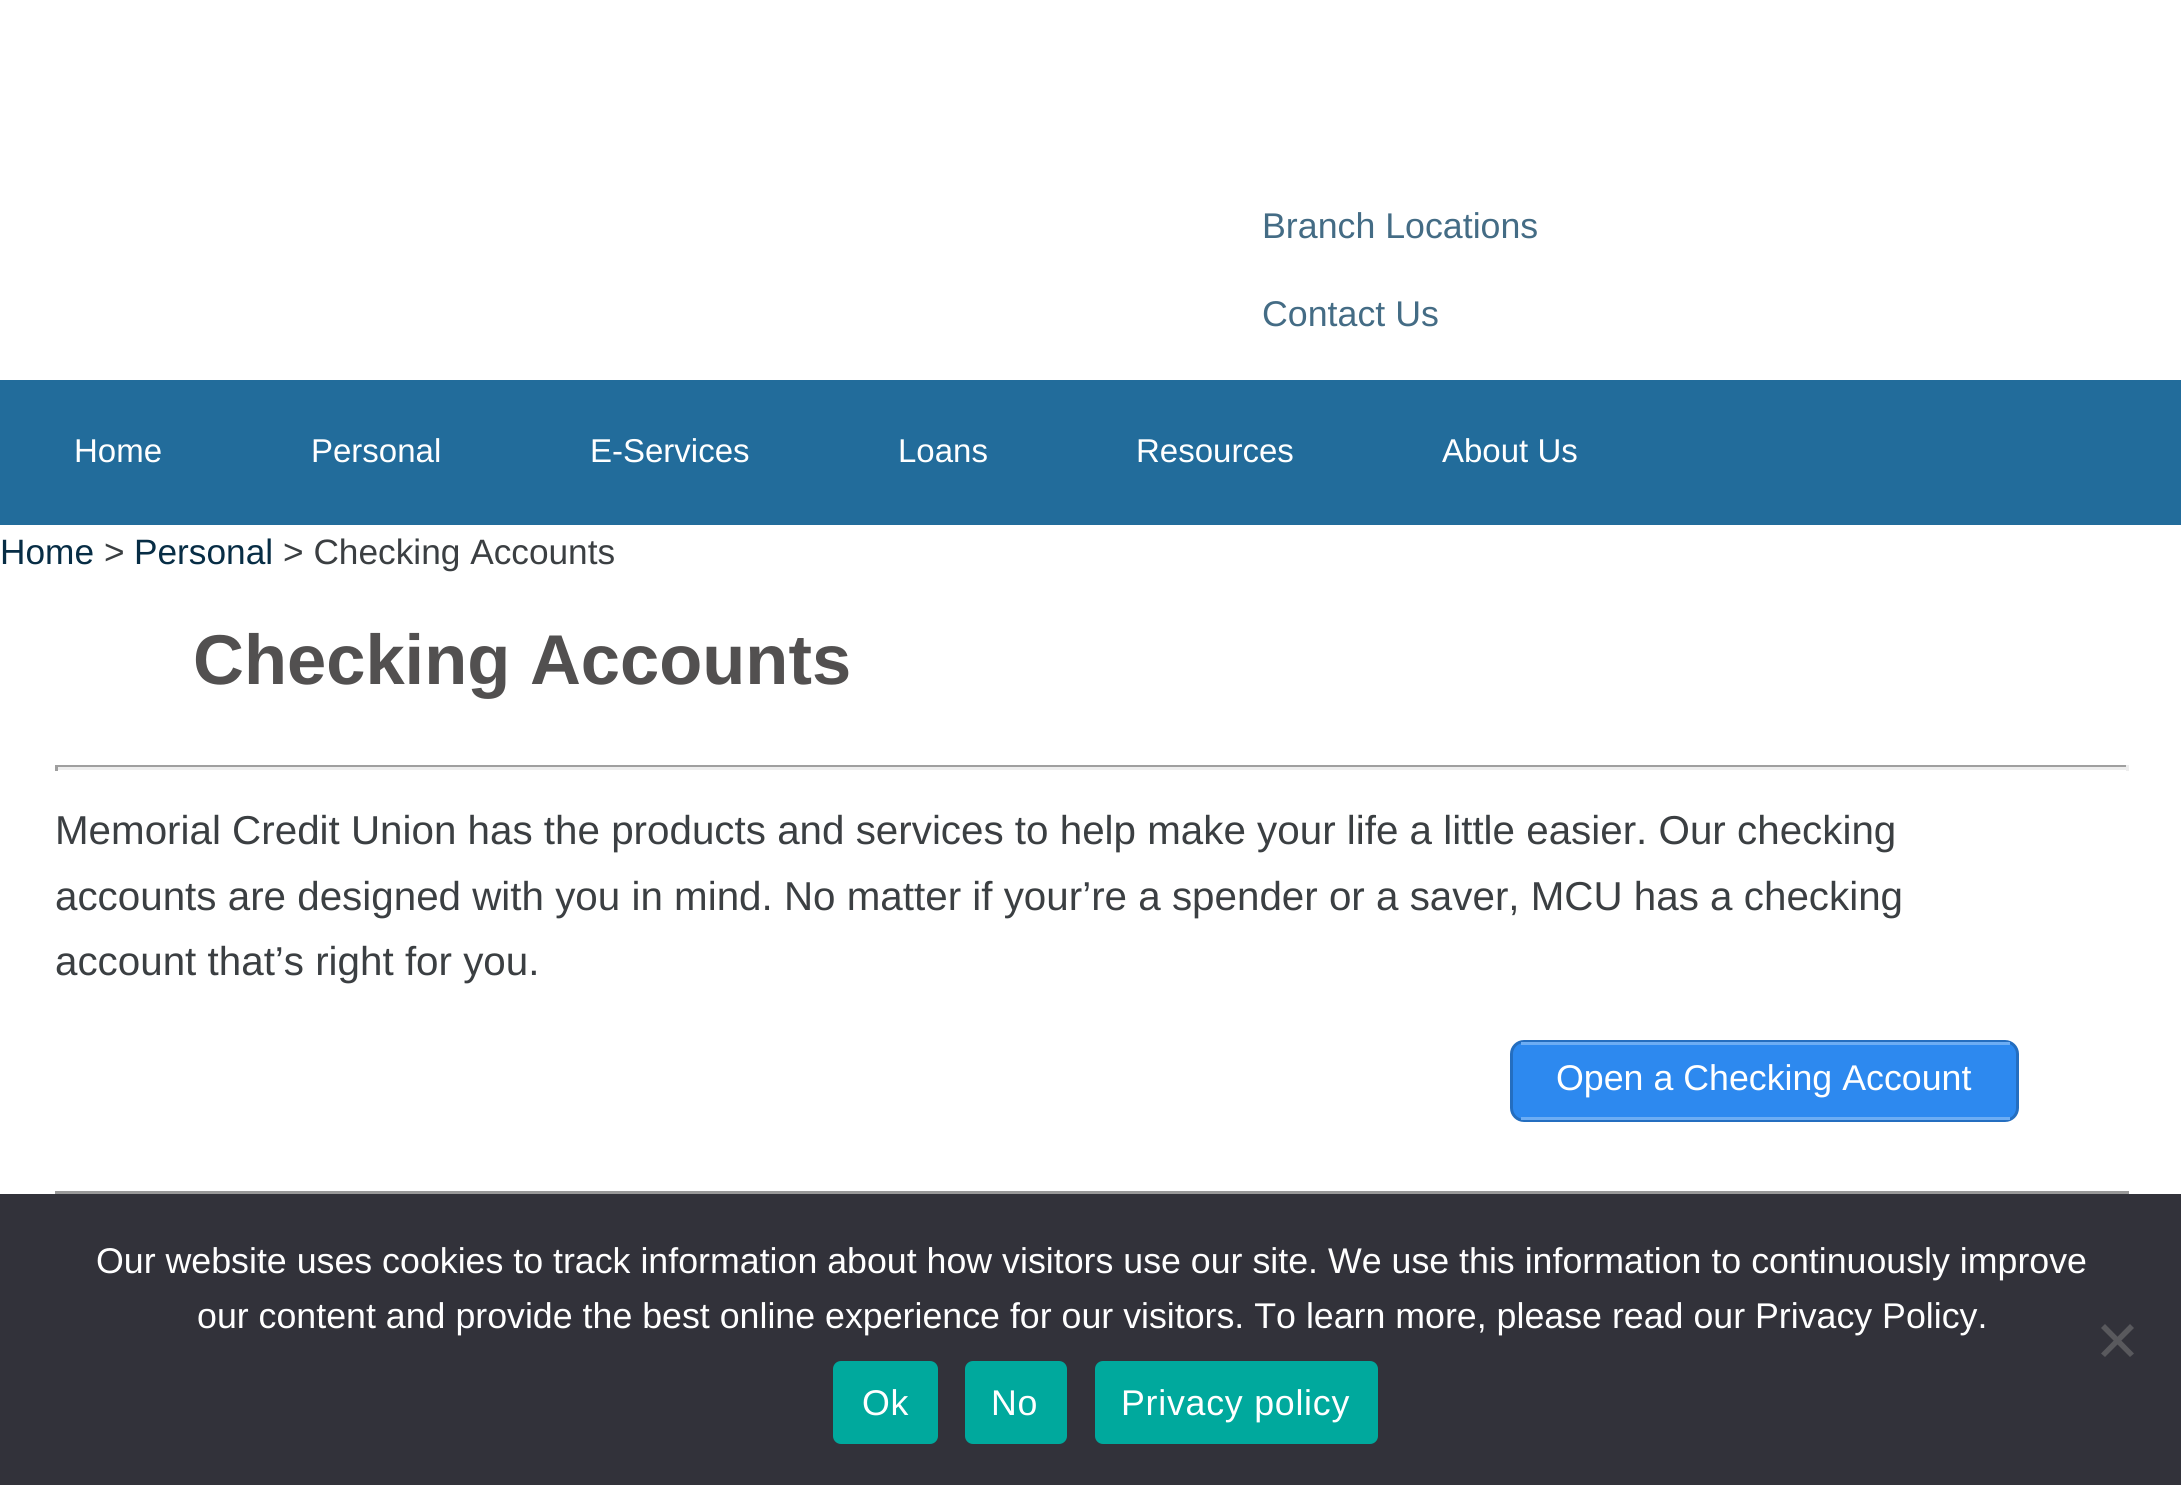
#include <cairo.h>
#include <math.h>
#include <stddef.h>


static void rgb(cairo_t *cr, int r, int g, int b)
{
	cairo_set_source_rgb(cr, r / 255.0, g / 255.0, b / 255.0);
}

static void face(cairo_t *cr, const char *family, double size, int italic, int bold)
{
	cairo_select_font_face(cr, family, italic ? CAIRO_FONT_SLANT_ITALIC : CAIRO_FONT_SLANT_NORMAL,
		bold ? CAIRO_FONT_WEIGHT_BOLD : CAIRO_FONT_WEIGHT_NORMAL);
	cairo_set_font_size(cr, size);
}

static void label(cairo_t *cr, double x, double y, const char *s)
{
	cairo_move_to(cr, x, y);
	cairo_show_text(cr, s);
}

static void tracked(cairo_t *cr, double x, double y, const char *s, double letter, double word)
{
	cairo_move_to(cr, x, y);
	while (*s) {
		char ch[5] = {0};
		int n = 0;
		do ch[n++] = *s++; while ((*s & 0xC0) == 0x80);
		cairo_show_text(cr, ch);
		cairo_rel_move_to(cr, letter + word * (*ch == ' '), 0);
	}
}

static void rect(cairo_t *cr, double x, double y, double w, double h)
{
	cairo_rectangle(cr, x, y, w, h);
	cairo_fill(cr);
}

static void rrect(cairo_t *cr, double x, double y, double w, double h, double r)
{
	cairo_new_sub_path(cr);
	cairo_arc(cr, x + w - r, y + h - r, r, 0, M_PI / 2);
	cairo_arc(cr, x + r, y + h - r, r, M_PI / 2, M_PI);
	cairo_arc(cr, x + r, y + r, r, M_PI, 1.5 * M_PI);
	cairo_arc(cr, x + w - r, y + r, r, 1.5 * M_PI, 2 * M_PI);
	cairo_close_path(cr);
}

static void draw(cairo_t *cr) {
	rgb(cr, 255, 255, 255);
	cairo_paint(cr);
	face(cr, "Liberation Sans", 35.75, 0, 0);
	rgb(cr, 68, 108, 133);
	label(cr, 1262, 238, "Branch Locations");
	label(cr, 1262, 326, "Contact Us");
	rgb(cr, 34, 108, 155);
	rect(cr, 0, 380, 2181, 145);
	face(cr, "Liberation Sans", 33, 0, 0);
	rgb(cr, 255, 255, 255);
	label(cr, 74, 462, "Home");
	label(cr, 311, 462, "Personal");
	label(cr, 590, 462, "E-Services");
	label(cr, 898, 462, "Loans");
	label(cr, 1136, 462, "Resources");
	label(cr, 1442, 462, "About Us");
	face(cr, "Liberation Sans", 35.25, 0, 0);
	rgb(cr, 7, 45, 69);
	label(cr, 0, 564, "Home");
	rgb(cr, 59, 63, 66);
	label(cr, 104, 564, ">");
	rgb(cr, 7, 45, 69);
	label(cr, 134, 564, "Personal");
	rgb(cr, 59, 63, 66);
	label(cr, 283, 564, "> Checking Accounts");
	face(cr, "Liberation Sans", 70.5, 0, 1);
	rgb(cr, 82, 80, 80);
	label(cr, 193, 684, "Checking Accounts");
	rgb(cr, 159, 159, 159);
	rect(cr, 55, 765, 2074, 2);
	rgb(cr, 238, 238, 238);
	rect(cr, 2126, 765, 3, 6);
	rect(cr, 55, 767, 2074, 3);
	rgb(cr, 159, 159, 159);
	rect(cr, 55, 765, 3, 6);
	face(cr, "Liberation Sans", 40.35, 0, 0);
	rgb(cr, 59, 63, 66);
	label(cr, 55, 844, "Memorial Credit Union has the products and services to help make your life a little easier. Our checking");
	label(cr, 55, 910, "accounts are designed with you in mind. No matter if your’re a spender or a saver, MCU has a checking");
	label(cr, 55, 975, "account that’s right for you.");
	rgb(cr, 45, 137, 239);
	rrect(cr, 1511.5, 1041.5, 506, 79, 12.5);
	cairo_fill_preserve(cr);
	rgb(cr, 36, 110, 192);
	cairo_set_line_width(cr, 3);
	cairo_stroke(cr);
	rgb(cr, 108, 173, 244);
	rect(cr, 1521, 1042, 489, 3);
	rect(cr, 1521, 1117, 489, 3);
	face(cr, "Liberation Sans", 35.75, 0, 0);
	rgb(cr, 255, 255, 255);
	label(cr, 1556, 1090, "Open a Checking Account");
	rgb(cr, 153, 153, 153);
	rect(cr, 55, 1191, 2074, 3);
	rgb(cr, 50, 50, 58);
	rect(cr, 0, 1194, 2181, 291);
	rgb(cr, 255, 255, 255);
	label(cr, 96, 1273, "Our website uses cookies to track information about how visitors use our site. We use this information to continuously improve");
	label(cr, 197, 1328, "our content and provide the best online experience for our visitors. To learn more, please read our Privacy Policy.");
	rgb(cr, 89, 89, 93);
	cairo_new_path(cr);
	cairo_move_to(cr, 2130, 1324);
	cairo_line_to(cr, 2134, 1328);
	cairo_line_to(cr, 2105, 1357);
	cairo_line_to(cr, 2101, 1353.5);
	cairo_close_path(cr);
	cairo_fill(cr);
	cairo_new_path(cr);
	cairo_move_to(cr, 2101, 1328);
	cairo_line_to(cr, 2105, 1324);
	cairo_line_to(cr, 2134, 1353.5);
	cairo_line_to(cr, 2130, 1357);
	cairo_close_path(cr);
	cairo_fill(cr);
	rgb(cr, 0, 169, 157);
	rrect(cr, 833, 1361, 105, 83, 8);
	cairo_fill(cr);
	rgb(cr, 255, 255, 255);
	tracked(cr, 862, 1415, "Ok", 0.75, 0);
	rgb(cr, 0, 169, 157);
	rrect(cr, 965, 1361, 102, 83, 8);
	cairo_fill(cr);
	rgb(cr, 255, 255, 255);
	tracked(cr, 991, 1415, "No", 0.75, 0);
	rgb(cr, 0, 169, 157);
	rrect(cr, 1095, 1361, 283, 83, 8);
	cairo_fill(cr);
	rgb(cr, 255, 255, 255);
	tracked(cr, 1121, 1415, "Privacy policy", 0.75, 0);
}

int main(void) {
	cairo_surface_t *surface = cairo_image_surface_create(CAIRO_FORMAT_RGB24, 2181, 1485);
	cairo_t *cr = cairo_create(surface);
	cairo_font_options_t *options = cairo_font_options_create();
	cairo_font_options_set_hint_metrics(options, CAIRO_HINT_METRICS_OFF);
	cairo_font_options_set_hint_style(options, CAIRO_HINT_STYLE_NONE);
	cairo_set_font_options(cr, options);
	cairo_set_miter_limit(cr, 4);
	draw(cr);
	cairo_surface_write_to_png(surface, "render.png");
	cairo_font_options_destroy(options);
	cairo_destroy(cr);
	cairo_surface_destroy(surface);
	return 0;
}
